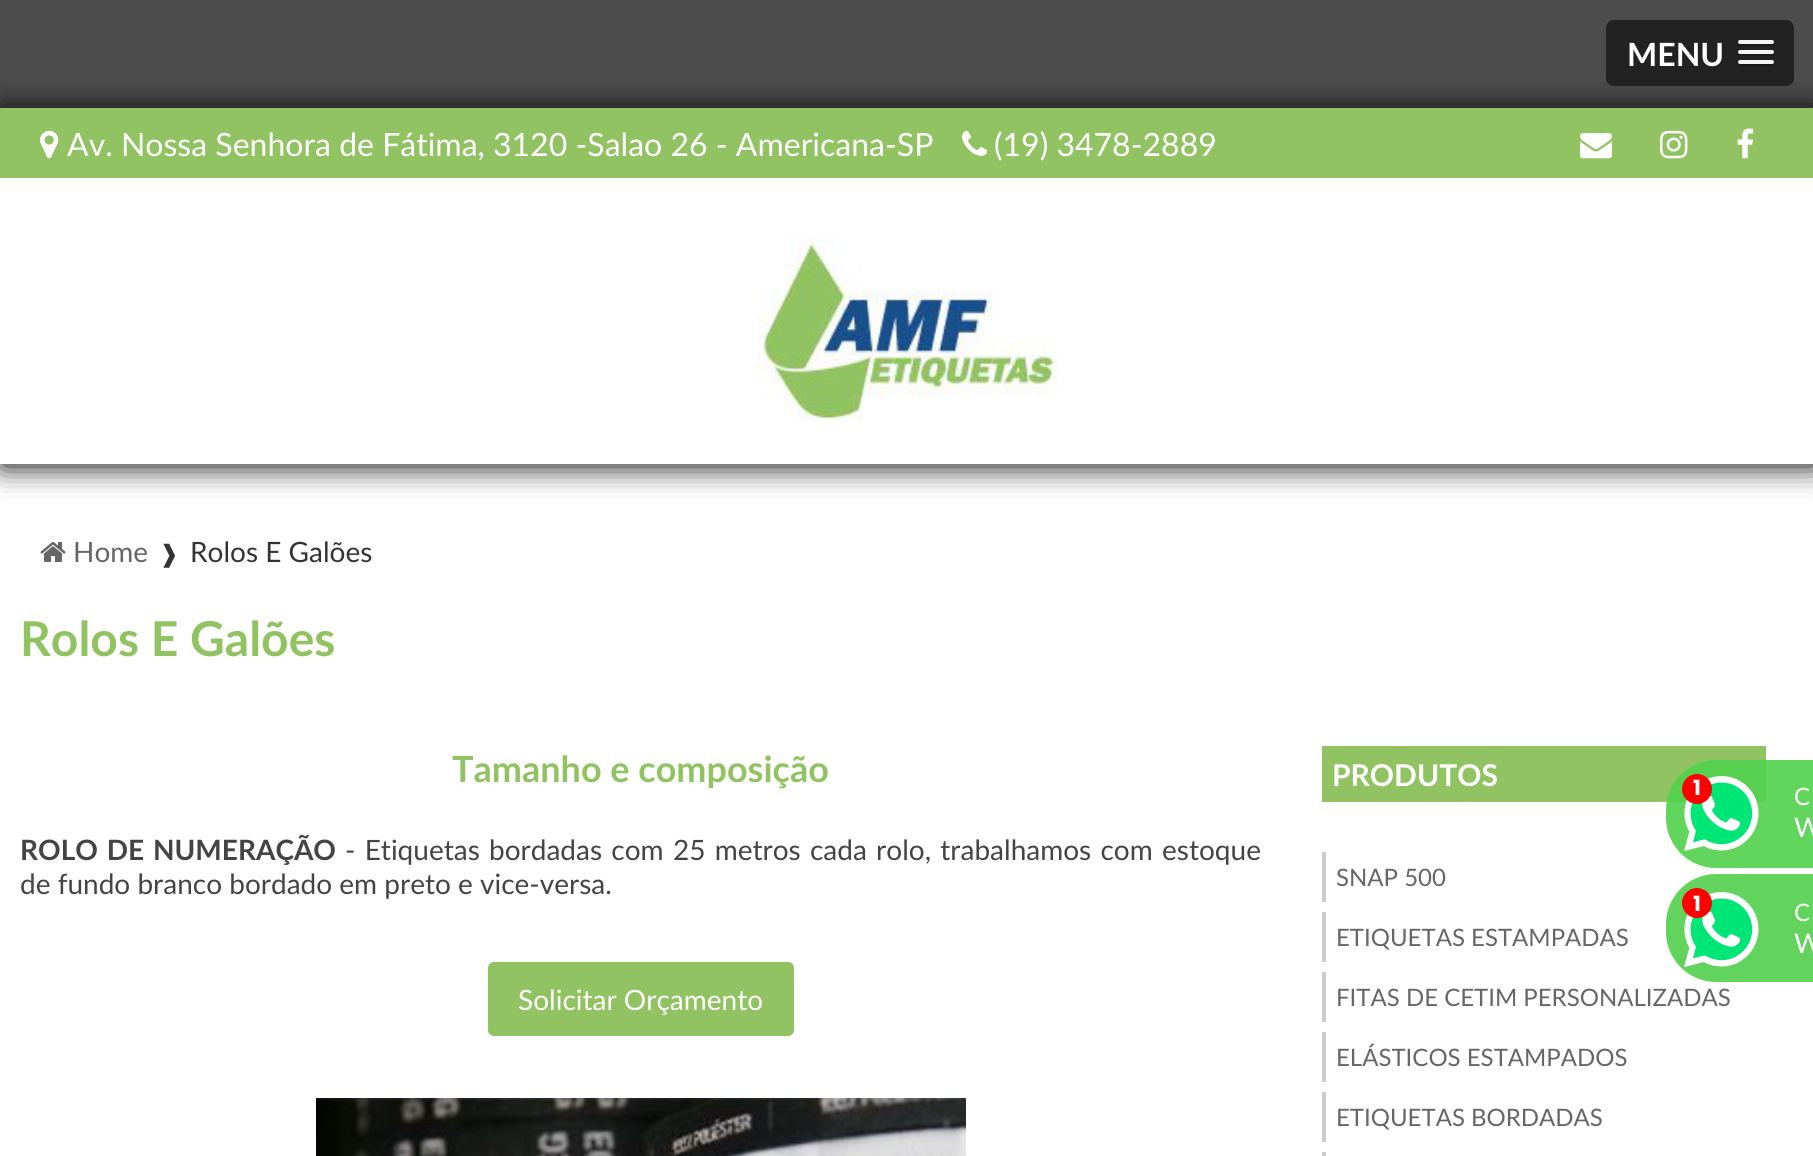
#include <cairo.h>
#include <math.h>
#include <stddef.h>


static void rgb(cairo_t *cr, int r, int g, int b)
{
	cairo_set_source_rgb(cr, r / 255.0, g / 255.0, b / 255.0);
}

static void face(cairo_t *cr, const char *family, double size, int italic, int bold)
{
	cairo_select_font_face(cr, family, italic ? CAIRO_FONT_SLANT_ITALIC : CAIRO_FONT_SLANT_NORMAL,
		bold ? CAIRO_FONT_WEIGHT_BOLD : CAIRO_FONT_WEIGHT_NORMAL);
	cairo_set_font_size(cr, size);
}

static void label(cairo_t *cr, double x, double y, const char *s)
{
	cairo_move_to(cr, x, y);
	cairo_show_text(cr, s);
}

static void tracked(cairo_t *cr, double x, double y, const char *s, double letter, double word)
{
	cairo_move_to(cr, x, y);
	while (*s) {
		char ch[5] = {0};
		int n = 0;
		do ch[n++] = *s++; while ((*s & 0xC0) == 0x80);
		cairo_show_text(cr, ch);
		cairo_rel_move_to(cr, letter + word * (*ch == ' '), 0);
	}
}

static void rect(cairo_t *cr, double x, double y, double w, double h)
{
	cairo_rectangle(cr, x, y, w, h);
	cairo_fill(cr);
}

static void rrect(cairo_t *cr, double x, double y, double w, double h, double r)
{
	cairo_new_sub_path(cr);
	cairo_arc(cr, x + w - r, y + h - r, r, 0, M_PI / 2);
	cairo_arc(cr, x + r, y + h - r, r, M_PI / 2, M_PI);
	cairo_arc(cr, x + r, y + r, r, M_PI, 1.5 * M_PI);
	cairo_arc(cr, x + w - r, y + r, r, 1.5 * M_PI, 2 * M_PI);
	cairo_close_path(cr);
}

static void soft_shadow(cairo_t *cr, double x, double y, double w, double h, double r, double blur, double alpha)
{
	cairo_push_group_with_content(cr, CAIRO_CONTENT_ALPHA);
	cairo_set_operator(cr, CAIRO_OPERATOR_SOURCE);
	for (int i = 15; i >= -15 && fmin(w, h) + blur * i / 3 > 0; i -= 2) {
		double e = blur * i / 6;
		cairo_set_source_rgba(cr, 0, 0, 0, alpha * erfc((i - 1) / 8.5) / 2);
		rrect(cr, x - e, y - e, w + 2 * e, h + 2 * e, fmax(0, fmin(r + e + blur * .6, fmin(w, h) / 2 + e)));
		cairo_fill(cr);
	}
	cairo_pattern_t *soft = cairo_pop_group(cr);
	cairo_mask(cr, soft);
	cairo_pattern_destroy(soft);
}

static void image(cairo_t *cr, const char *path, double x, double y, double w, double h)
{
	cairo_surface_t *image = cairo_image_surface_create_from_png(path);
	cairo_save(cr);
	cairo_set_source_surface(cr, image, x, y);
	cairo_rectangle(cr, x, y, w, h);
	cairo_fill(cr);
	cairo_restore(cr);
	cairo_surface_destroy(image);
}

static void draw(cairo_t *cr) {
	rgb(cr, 255, 255, 255);
	cairo_paint(cr);
	rgb(cr, 76, 76, 76);
	rect(cr, 0, 0, 1813, 108);
	rgb(cr, 34, 34, 34);
	rrect(cr, 1606, 20, 188, 66, 8);
	cairo_fill(cr);
	face(cr, "Lato", 32, 0, 1);
	rgb(cr, 255, 255, 255);
	label(cr, 1627, 66, "MENU");
	rgb(cr, 26, 26, 26);
	cairo_new_path(cr);
	cairo_move_to(cr, 1738.5, 43);
	cairo_curve_to(cr, 1736, 47, 1745, 46, 1745.5, 46);
	cairo_line_to(cr, 1766.5, 46);
	cairo_curve_to(cr, 1767, 46, 1776, 47, 1773.5, 43);
	cairo_curve_to(cr, 1773.5, 43.5, 1772.5, 44, 1772, 44);
	cairo_line_to(cr, 1740, 44);
	cairo_curve_to(cr, 1739.5, 44, 1738.5, 43.5, 1738.5, 43);
	cairo_close_path(cr);
	cairo_fill(cr);
	rgb(cr, 245, 245, 245);
	rrect(cr, 1738, 40, 36, 4, 2);
	cairo_fill(cr);
	rgb(cr, 26, 26, 26);
	cairo_new_path(cr);
	cairo_move_to(cr, 1738.5, 53);
	cairo_curve_to(cr, 1736, 57, 1745, 56, 1745.5, 56);
	cairo_line_to(cr, 1766.5, 56);
	cairo_curve_to(cr, 1767, 56, 1776, 57, 1773.5, 53);
	cairo_curve_to(cr, 1773.5, 53.5, 1772.5, 54, 1772, 54);
	cairo_line_to(cr, 1740, 54);
	cairo_curve_to(cr, 1739.5, 54, 1738.5, 53.5, 1738.5, 53);
	cairo_close_path(cr);
	cairo_fill(cr);
	rgb(cr, 245, 245, 245);
	rrect(cr, 1738, 50, 36, 4, 2);
	cairo_fill(cr);
	rgb(cr, 26, 26, 26);
	cairo_new_path(cr);
	cairo_move_to(cr, 1738.5, 63);
	cairo_curve_to(cr, 1736, 67, 1745, 66, 1745.5, 66);
	cairo_line_to(cr, 1766.5, 66);
	cairo_curve_to(cr, 1767, 66, 1776, 67, 1773.5, 63);
	cairo_curve_to(cr, 1773.5, 63.5, 1772.5, 64, 1772, 64);
	cairo_line_to(cr, 1740, 64);
	cairo_curve_to(cr, 1739.5, 64, 1738.5, 63.5, 1738.5, 63);
	cairo_close_path(cr);
	cairo_fill(cr);
	rgb(cr, 245, 245, 245);
	rrect(cr, 1738, 60, 36, 4, 2);
	cairo_fill(cr);
	cairo_save(cr);
	cairo_set_fill_rule(cr, CAIRO_FILL_RULE_EVEN_ODD);
	cairo_new_path(cr);
	cairo_move_to(cr, 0, 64);
	cairo_line_to(cr, 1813, 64);
	cairo_line_to(cr, 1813, 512);
	cairo_line_to(cr, 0, 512);
	cairo_close_path(cr);
	cairo_move_to(cr, 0, 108);
	cairo_line_to(cr, 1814, 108);
	cairo_line_to(cr, 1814, 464);
	cairo_line_to(cr, 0, 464);
	cairo_close_path(cr);
	cairo_clip(cr);
	rgb(cr, 0, 0, 0);
	soft_shadow(cr, 2, 110, 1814, 356, 0, 15, 1);
	cairo_restore(cr);
	rgb(cr, 145, 195, 98);
	rect(cr, 0, 108, 1813, 70);
	image(cr, "image0.png", 40, 130, 19, 29);
	face(cr, "Lato", 32, 0, 0);
	rgb(cr, 255, 255, 255);
	label(cr, 67, 156, "Av. Nossa Senhora de Fátima, 3120 -Salao 26 - Americana-SP");
	image(cr, "image1.png", 962, 130, 26, 26);
	label(cr, 994, 156, "(19) 3478-2889");
	image(cr, "image2.png", 1580, 133, 32, 26);
	image(cr, "image3.png", 1660, 130, 28, 29);
	image(cr, "image4.png", 1737, 128, 17, 31);
	image(cr, "image5.png", 758, 238, 300, 183);
	image(cr, "image6.png", 40, 542, 26, 20);
	face(cr, "Lato", 28, 0, 0);
	rgb(cr, 102, 102, 102);
	label(cr, 73, 562, "Home");
	face(cr, "DejaVu Sans", 24, 0, 0);
	rgb(cr, 51, 51, 51);
	label(cr, 159, 562, "❱");
	face(cr, "Lato", 28, 0, 0);
	label(cr, 190, 562, "Rolos E Galões");
	face(cr, "Lato", 48, 0, 1);
	rgb(cr, 145, 195, 98);
	label(cr, 20, 656, "Rolos E Galões");
	face(cr, "Lato", 36, 0, 1);
	label(cr, 452, 782, "Tamanho e composição");
	face(cr, "Lato", 28, 0, 1);
	rgb(cr, 68, 68, 68);
	tracked(cr, 20, 860, "ROLO DE NUMERAÇÃO", 0, 2.1);
	face(cr, "Lato", 28, 0, 0);
	tracked(cr, 345, 860, "- Etiquetas bordadas com 25 metros cada rolo, trabalhamos com estoque", 0, 2.1);
	label(cr, 20, 894, "de fundo branco bordado em preto e vice-versa.");
	rgb(cr, 145, 195, 98);
	rrect(cr, 488, 962, 306, 74, 6);
	cairo_fill(cr);
	rgb(cr, 255, 255, 255);
	label(cr, 518, 1010, "Solicitar Orçamento");
	image(cr, "image7.png", 316, 1098, 650, 58);
	rgb(cr, 145, 195, 98);
	rect(cr, 1322, 746, 444, 56);
	face(cr, "Lato", 30, 0, 1);
	rgb(cr, 255, 255, 255);
	label(cr, 1332, 786, "PRODUTOS");
	rgb(cr, 204, 204, 204);
	rect(cr, 1322, 852, 4, 50);
	face(cr, "Lato", 24, 0, 0);
	rgb(cr, 102, 102, 102);
	label(cr, 1336, 886, "SNAP 500");
	rgb(cr, 204, 204, 204);
	rect(cr, 1322, 912, 4, 50);
	rgb(cr, 102, 102, 102);
	label(cr, 1336, 946, "ETIQUETAS ESTAMPADAS");
	rgb(cr, 204, 204, 204);
	rect(cr, 1322, 972, 4, 50);
	rgb(cr, 102, 102, 102);
	label(cr, 1336, 1006, "FITAS DE CETIM PERSONALIZADAS");
	rgb(cr, 204, 204, 204);
	rect(cr, 1322, 1032, 4, 50);
	rgb(cr, 102, 102, 102);
	label(cr, 1336, 1066, "ELÁSTICOS ESTAMPADOS");
	rgb(cr, 204, 204, 204);
	rect(cr, 1322, 1092, 4, 50);
	rgb(cr, 102, 102, 102);
	label(cr, 1336, 1126, "ETIQUETAS BORDADAS");
	rgb(cr, 204, 204, 204);
	rect(cr, 1322, 1152, 4, 4);
	cairo_set_source_rgba(cr, 0.322, 0.816, 0.302, 0.91);
	cairo_new_path(cr);
	cairo_move_to(cr, 1716, 760);
	cairo_line_to(cr, 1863, 760);
	cairo_line_to(cr, 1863, 868);
	cairo_line_to(cr, 1716, 868);
	cairo_curve_to(cr, 1688.5, 868, 1666, 845.5, 1666, 818);
	cairo_line_to(cr, 1666, 810);
	cairo_curve_to(cr, 1666, 782.5, 1688.5, 760, 1716, 760);
	cairo_close_path(cr);
	cairo_fill(cr);
	image(cr, "image8.png", 1684, 776, 75, 75);
	rgb(cr, 255, 0, 0);
	cairo_arc(cr, 1697, 789, 15, 0, 2 * M_PI);
	cairo_fill(cr);
	face(cr, "Poppins", 21, 0, 1);
	rgb(cr, 255, 255, 255);
	label(cr, 1693, 795, "1");
	face(cr, "Lato", 24, 0, 0);
	label(cr, 1794, 805, "C");
	face(cr, "Lato", 27, 0, 0);
	label(cr, 1794, 837, "W");
	rgb(cr, 98, 212, 93);
	cairo_new_path(cr);
	cairo_move_to(cr, 1716, 874);
	cairo_line_to(cr, 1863, 874);
	cairo_line_to(cr, 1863, 982);
	cairo_line_to(cr, 1716, 982);
	cairo_curve_to(cr, 1688.5, 982, 1666, 959.5, 1666, 932);
	cairo_line_to(cr, 1666, 924);
	cairo_curve_to(cr, 1666, 896.5, 1688.5, 874, 1716, 874);
	cairo_close_path(cr);
	cairo_fill(cr);
	rgb(cr, 0, 230, 118);
	cairo_arc(cr, 1722, 928, 36, 0, 2 * M_PI);
	cairo_fill(cr);
	image(cr, "image9.png", 1684, 892, 75, 75);
	rgb(cr, 255, 0, 0);
	cairo_arc(cr, 1697, 903, 15, 0, 2 * M_PI);
	cairo_fill(cr);
	face(cr, "Poppins", 21, 0, 1);
	rgb(cr, 255, 255, 255);
	label(cr, 1693, 911, "1");
	face(cr, "Lato", 24, 0, 0);
	label(cr, 1794, 921, "C");
	face(cr, "Lato", 27, 0, 0);
	label(cr, 1794, 953, "W");
}

int main(void) {
	cairo_surface_t *surface = cairo_image_surface_create(CAIRO_FORMAT_RGB24, 1813, 1156);
	cairo_t *cr = cairo_create(surface);
	cairo_font_options_t *options = cairo_font_options_create();
	cairo_font_options_set_hint_metrics(options, CAIRO_HINT_METRICS_OFF);
	cairo_font_options_set_hint_style(options, CAIRO_HINT_STYLE_NONE);
	cairo_set_font_options(cr, options);
	cairo_set_miter_limit(cr, 4);
	draw(cr);
	cairo_surface_write_to_png(surface, "render.png");
	cairo_font_options_destroy(options);
	cairo_destroy(cr);
	cairo_surface_destroy(surface);
	return 0;
}
